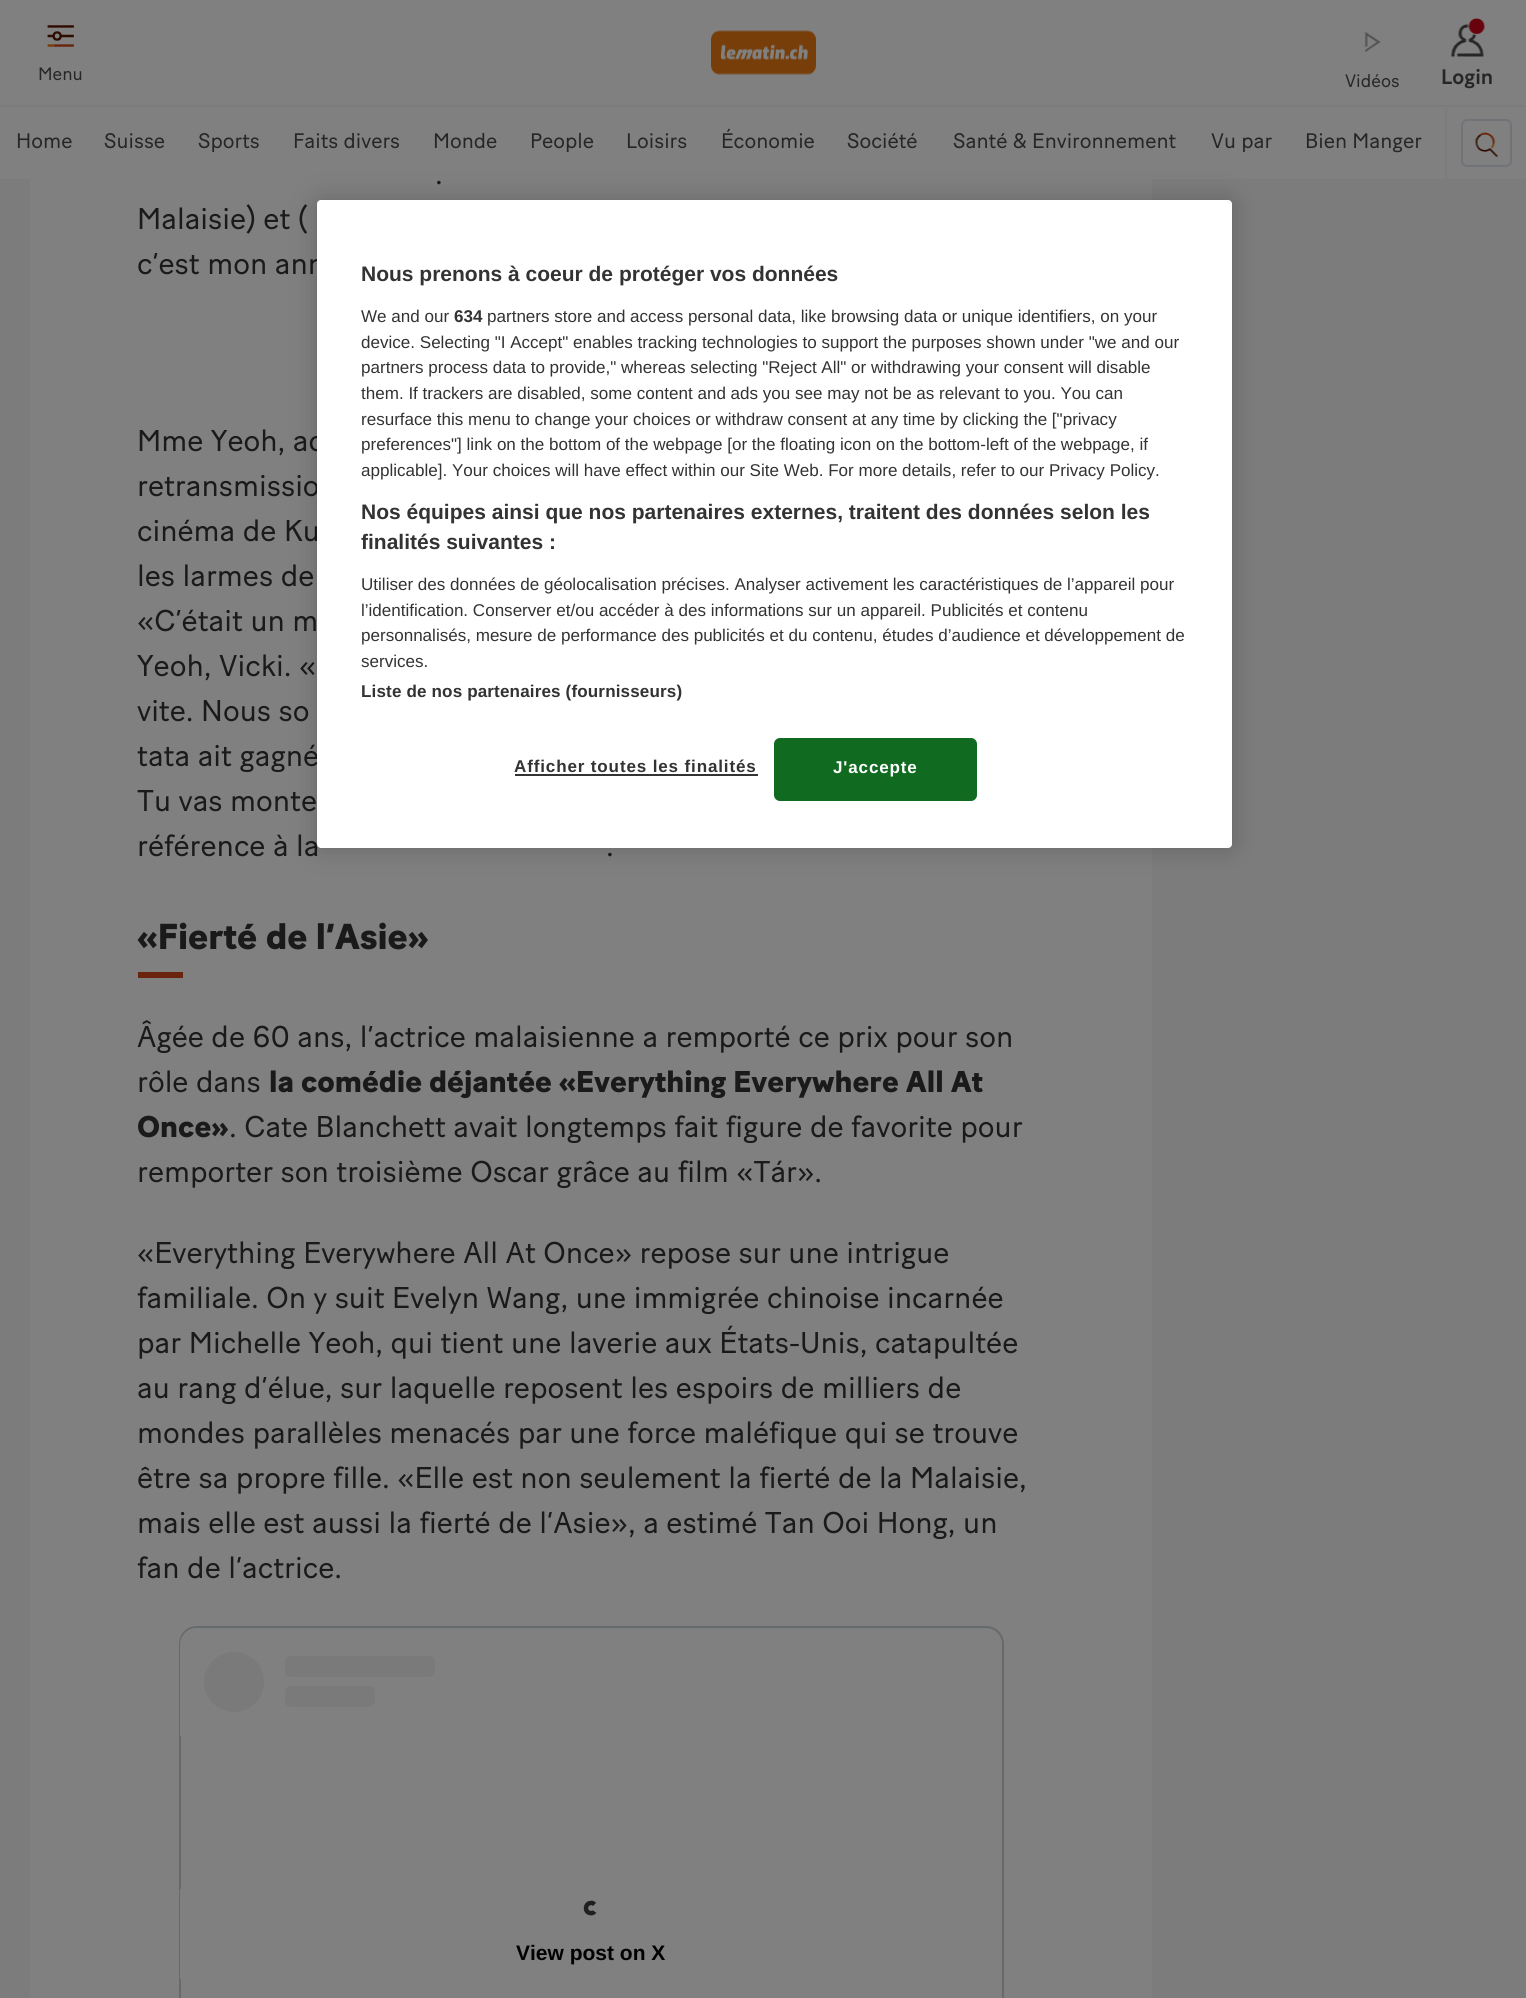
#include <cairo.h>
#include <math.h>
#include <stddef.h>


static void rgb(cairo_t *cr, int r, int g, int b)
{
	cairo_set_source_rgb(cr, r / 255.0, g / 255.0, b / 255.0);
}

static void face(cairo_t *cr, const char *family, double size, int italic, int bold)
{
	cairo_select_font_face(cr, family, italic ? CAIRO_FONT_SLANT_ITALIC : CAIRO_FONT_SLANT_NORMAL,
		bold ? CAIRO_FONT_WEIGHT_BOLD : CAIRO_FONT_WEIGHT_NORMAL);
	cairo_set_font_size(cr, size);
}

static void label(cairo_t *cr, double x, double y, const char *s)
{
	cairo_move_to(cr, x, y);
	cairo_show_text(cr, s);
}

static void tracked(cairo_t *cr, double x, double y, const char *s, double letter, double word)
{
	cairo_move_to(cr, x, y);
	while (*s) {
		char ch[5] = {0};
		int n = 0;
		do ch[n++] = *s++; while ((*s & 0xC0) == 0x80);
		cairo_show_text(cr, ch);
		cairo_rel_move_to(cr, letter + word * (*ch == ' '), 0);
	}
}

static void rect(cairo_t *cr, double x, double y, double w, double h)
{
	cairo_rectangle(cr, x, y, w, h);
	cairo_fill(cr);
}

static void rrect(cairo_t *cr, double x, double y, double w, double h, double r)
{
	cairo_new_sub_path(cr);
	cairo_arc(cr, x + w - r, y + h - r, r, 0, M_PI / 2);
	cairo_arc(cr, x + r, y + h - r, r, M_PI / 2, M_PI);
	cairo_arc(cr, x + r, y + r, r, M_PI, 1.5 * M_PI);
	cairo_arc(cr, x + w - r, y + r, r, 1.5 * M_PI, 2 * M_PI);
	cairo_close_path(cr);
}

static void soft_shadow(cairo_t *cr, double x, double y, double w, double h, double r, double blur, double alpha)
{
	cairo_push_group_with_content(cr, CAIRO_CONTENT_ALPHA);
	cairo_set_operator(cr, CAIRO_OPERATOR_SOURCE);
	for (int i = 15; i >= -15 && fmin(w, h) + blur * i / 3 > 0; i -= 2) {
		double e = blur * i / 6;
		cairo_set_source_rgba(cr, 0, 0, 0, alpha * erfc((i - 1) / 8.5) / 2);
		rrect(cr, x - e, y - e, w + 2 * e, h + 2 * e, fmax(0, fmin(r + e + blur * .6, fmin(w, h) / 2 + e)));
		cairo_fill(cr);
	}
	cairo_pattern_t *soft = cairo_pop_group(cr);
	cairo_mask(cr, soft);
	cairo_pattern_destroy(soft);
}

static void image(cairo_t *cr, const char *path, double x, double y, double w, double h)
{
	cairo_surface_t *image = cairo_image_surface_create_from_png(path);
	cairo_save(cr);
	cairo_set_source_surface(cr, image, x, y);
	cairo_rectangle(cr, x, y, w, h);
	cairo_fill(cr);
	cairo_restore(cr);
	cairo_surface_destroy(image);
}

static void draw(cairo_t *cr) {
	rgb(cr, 124, 124, 124);
	cairo_paint(cr);
	rgb(cr, 128, 128, 128);
	rect(cr, 0, 0, 1526, 105);
	image(cr, "image0.png", 47, 25, 27, 22);
	face(cr, "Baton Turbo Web", 18, 0, 0);
	rgb(cr, 38, 38, 38);
	label(cr, 38, 80, "Menu");
	image(cr, "image1.png", 711, 30, 105, 45);
	image(cr, "image2.png", 1364, 32, 17, 20);
	label(cr, 1345, 87, "Vidéos");
	image(cr, "image3.png", 1451, 18, 34, 39);
	face(cr, "Baton Turbo Web Medium", 21, 0, 0);
	label(cr, 1441, 84, "Login");
	rgb(cr, 128, 128, 128);
	rect(cr, 0, 107, 1526, 72);
	face(cr, "Baton Turbo Web", 21, 0, 0);
	rgb(cr, 38, 38, 38);
	label(cr, 16, 148, "Home");
	label(cr, 104, 148, "Suisse");
	label(cr, 198, 148, "Sports");
	label(cr, 293, 148, "Faits divers");
	label(cr, 433, 148, "Monde");
	label(cr, 530, 148, "People");
	label(cr, 626, 148, "Loisirs");
	label(cr, 721, 148, "Économie");
	label(cr, 847, 148, "Société");
	label(cr, 953, 148, "Santé & Environnement");
	label(cr, 1211, 148, "Vu par");
	label(cr, 1305, 148, "Bien Manger");
	rgb(cr, 124, 124, 124);
	rect(cr, 1445, 108, 2, 71);
	rrect(cr, 1462, 120, 49, 46, 5);
	rgb(cr, 112, 115, 120);
	cairo_stroke(cr);
	image(cr, "image4.png", 1475, 132, 23, 25);
	rgb(cr, 128, 128, 128);
	rect(cr, 30, 179, 1122, 1819);
	face(cr, "Baton Turbo Web", 30, 0, 0);
	rgb(cr, 26, 26, 26);
	label(cr, 435, 184, ".");
	label(cr, 137, 229, "Malaisie) et (");
	label(cr, 137, 274, "c’est mon ann");
	label(cr, 137, 451, "Mme Yeoh, ac");
	label(cr, 137, 496, "retransmissio");
	label(cr, 137, 541, "cinéma de Ku");
	label(cr, 137, 586, "les larmes de");
	label(cr, 137, 631, "«C’était un m");
	label(cr, 137, 676, "Yeoh, Vicki. «");
	label(cr, 137, 721, "vite. Nous so");
	label(cr, 137, 766, "tata ait gagné");
	label(cr, 137, 811, "Tu vas monte");
	label(cr, 137, 856, "référence à la");
	label(cr, 606, 856, ".");
	face(cr, "Baton Turbo Web Black", 36, 0, 0);
	label(cr, 137, 949, "«Fierté de l’Asie»");
	rgb(cr, 106, 35, 12);
	rect(cr, 138, 972, 45, 6);
	face(cr, "Baton Turbo Web", 30, 0, 0);
	rgb(cr, 26, 26, 26);
	label(cr, 137, 1047, "Âgée de 60 ans, l’actrice malaisienne a remporté ce prix pour son");
	label(cr, 137, 1092, "rôle dans");
	face(cr, "Baton Turbo Web Black", 30, 0, 0);
	label(cr, 269, 1092, "la comédie déjantée «Everything Everywhere All At");
	label(cr, 137, 1137, "Once»");
	face(cr, "Baton Turbo Web", 30, 0, 0);
	label(cr, 229, 1137, ". Cate Blanchett avait longtemps fait figure de favorite pour");
	label(cr, 137, 1182, "remporter son troisième Oscar grâce au film «Tár».");
	label(cr, 137, 1263, "«Everything Everywhere All At Once» repose sur une intrigue");
	label(cr, 137, 1308, "familiale. On y suit Evelyn Wang, une immigrée chinoise incarnée");
	label(cr, 137, 1353, "par Michelle Yeoh, qui tient une laverie aux États-Unis, catapultée");
	label(cr, 137, 1398, "au rang d’élue, sur laquelle reposent les espoirs de milliers de");
	label(cr, 137, 1443, "mondes parallèles menacés par une force maléfique qui se trouve");
	label(cr, 137, 1488, "être sa propre fille. «Elle est non seulement la fierté de la Malaisie,");
	label(cr, 137, 1533, "mais elle est aussi la fierté de l’Asie», a estimé Tan Ooi Hong, un");
	label(cr, 137, 1578, "fan de l’actrice.");
	rrect(cr, 180, 1627, 823, 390, 17);
	rgb(cr, 101, 106, 109);
	cairo_stroke(cr);
	rgb(cr, 128, 128, 128);
	cairo_new_path(cr);
	cairo_move_to(cr, 197, 1628);
	cairo_line_to(cr, 459, 1628);
	cairo_line_to(cr, 459, 1736);
	cairo_line_to(cr, 180, 1736);
	cairo_line_to(cr, 180, 1645);
	cairo_curve_to(cr, 180, 1635.5, 187.5, 1628, 197, 1628);
	cairo_close_path(cr);
	cairo_fill(cr);
	rgb(cr, 122, 122, 122);
	cairo_arc(cr, 234, 1682, 30, 0, 2 * M_PI);
	cairo_fill(cr);
	rrect(cr, 285, 1656, 150, 21, 6);
	cairo_fill(cr);
	rrect(cr, 285, 1686, 90, 21, 6);
	cairo_fill(cr);
	rgb(cr, 128, 128, 128);
	rect(cr, 180, 1889, 1, 90);
	cairo_new_path(cr);
	cairo_move_to(cr, 594.5, 1911.5);
	cairo_curve_to(cr, 593.5, 1913, 591.5, 1913.5, 590, 1913);
	cairo_curve_to(cr, 584, 1912, 585, 1903, 591, 1903);
	cairo_curve_to(cr, 592.5, 1902.5, 593.5, 1903.5, 594.5, 1904.5);
	rgb(cr, 32, 32, 32);
	cairo_set_line_width(cr, 4.5);
	cairo_stroke(cr);
	face(cr, "Liberation Sans", 21, 0, 1);
	rgb(cr, 0, 0, 0);
	label(cr, 516, 1960, "View post on X");
	rgb(cr, 0, 0, 0);
	soft_shadow(cr, 317, 200, 915, 648, 4, 13.5, 0.2);
	rgb(cr, 255, 255, 255);
	rrect(cr, 317, 200, 915, 648, 4);
	cairo_fill(cr);
	rgb(cr, 51, 51, 51);
	label(cr, 361, 281, "Nous prenons à coeur de protéger vos données");
	face(cr, "Liberation Sans", 17.05, 0, 0);
	label(cr, 361, 322, "We and our");
	face(cr, "Liberation Sans", 17.05, 0, 1);
	label(cr, 454, 322, "634");
	face(cr, "Liberation Sans", 17.05, 0, 0);
	label(cr, 487, 322, "partners store and access personal data, like browsing data or unique identifiers, on your");
	label(cr, 361, 348, "device. Selecting \"I Accept\" enables tracking technologies to support the purposes shown under \"we and our");
	label(cr, 361, 373, "partners process data to provide,\" whereas selecting \"Reject All\" or withdrawing your consent will disable");
	label(cr, 361, 399, "them. If trackers are disabled, some content and ads you see may not be as relevant to you. You can");
	label(cr, 361, 425, "resurface this menu to change your choices or withdraw consent at any time by clicking the [\"privacy");
	label(cr, 361, 450, "preferences\"] link on the bottom of the webpage [or the floating icon on the bottom-left of the webpage, if");
	label(cr, 361, 476, "applicable]. Your choices will have effect within our Site Web. For more details, refer to our Privacy Policy.");
	face(cr, "Liberation Sans", 21, 0, 1);
	label(cr, 361, 519, "Nos équipes ainsi que nos partenaires externes, traitent des données selon les");
	label(cr, 361, 549, "finalités suivantes :");
	face(cr, "Liberation Sans", 17.05, 0, 0);
	label(cr, 361, 590, "Utiliser des données de géolocalisation précises. Analyser activement les caractéristiques de l’appareil pour");
	label(cr, 361, 616, "l’identification. Conserver et/ou accéder à des informations sur un appareil. Publicités et contenu");
	label(cr, 361, 641, "personnalisés, mesure de performance des publicités et du contenu, études d’audience et développement de");
	label(cr, 361, 667, "services.");
	face(cr, "Liberation Sans", 17.05, 0, 1);
	tracked(cr, 361, 697, "Liste de nos partenaires (fournisseurs)", 0.15, 0);
	tracked(cr, 514, 772, "Afficher toutes les finalités", 0.85, 0);
	rect(cr, 515, 774, 243, 2);
	rgb(cr, 16, 107, 33);
	rrect(cr, 775, 739, 201, 61, 5);
	cairo_fill_preserve(cr);
	cairo_set_line_width(cr, 2);
	cairo_stroke(cr);
	rgb(cr, 255, 255, 255);
	tracked(cr, 833, 773, "J'accepte", 0.85, 0);
}

int main(void) {
	cairo_surface_t *surface = cairo_image_surface_create(CAIRO_FORMAT_RGB24, 1526, 1998);
	cairo_t *cr = cairo_create(surface);
	cairo_font_options_t *options = cairo_font_options_create();
	cairo_font_options_set_hint_metrics(options, CAIRO_HINT_METRICS_OFF);
	cairo_font_options_set_hint_style(options, CAIRO_HINT_STYLE_NONE);
	cairo_set_font_options(cr, options);
	cairo_set_miter_limit(cr, 4);
	draw(cr);
	cairo_surface_write_to_png(surface, "render.png");
	cairo_font_options_destroy(options);
	cairo_destroy(cr);
	cairo_surface_destroy(surface);
	return 0;
}
